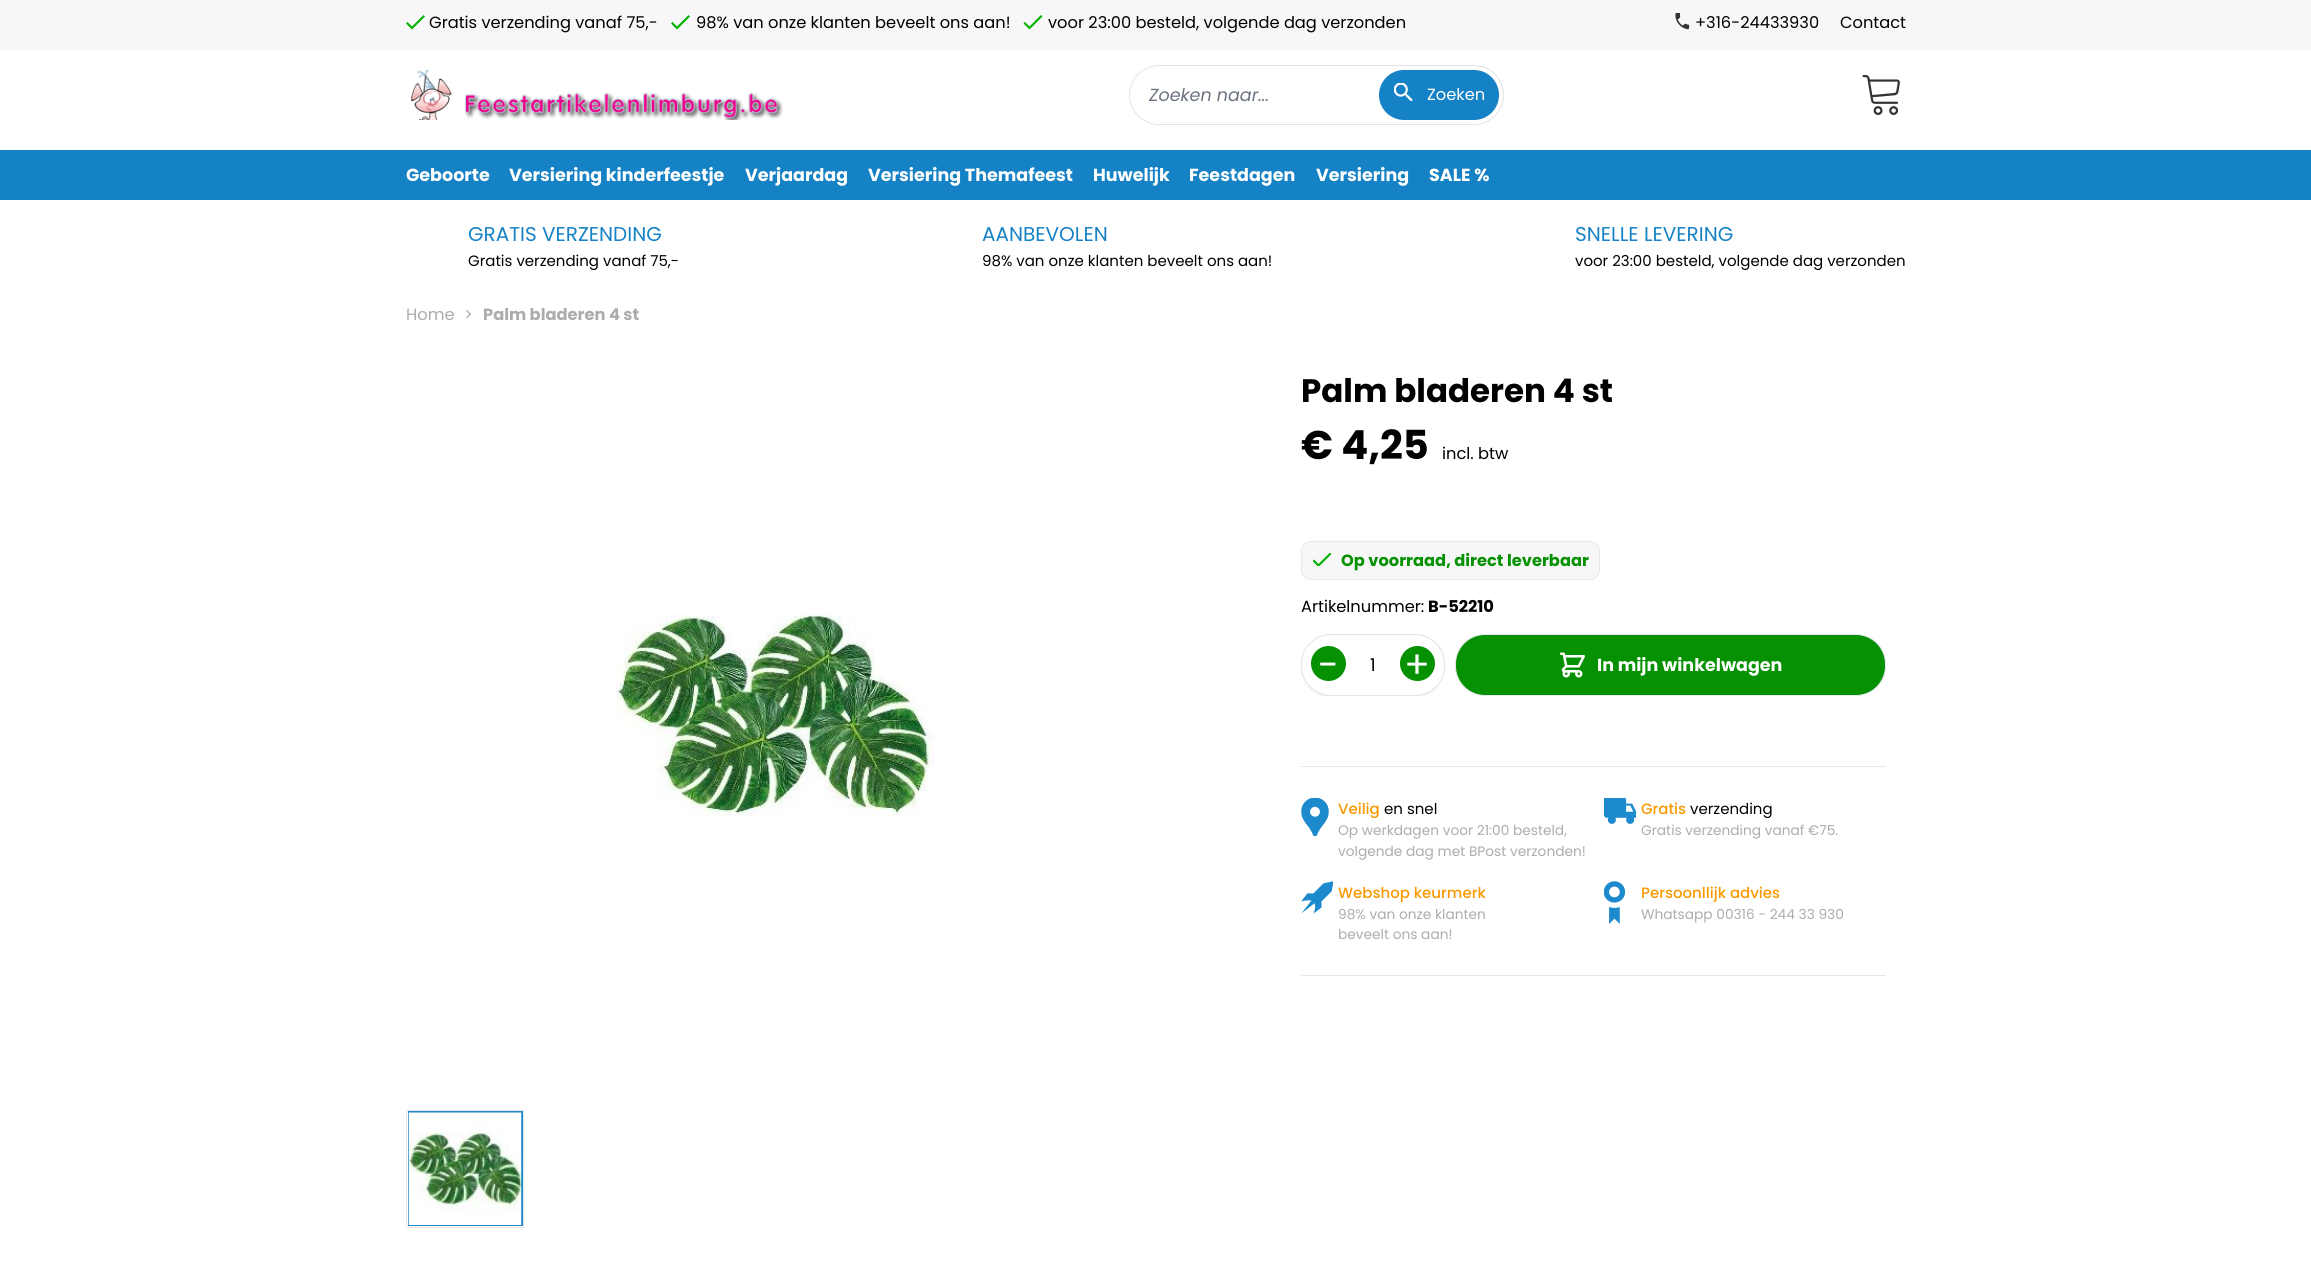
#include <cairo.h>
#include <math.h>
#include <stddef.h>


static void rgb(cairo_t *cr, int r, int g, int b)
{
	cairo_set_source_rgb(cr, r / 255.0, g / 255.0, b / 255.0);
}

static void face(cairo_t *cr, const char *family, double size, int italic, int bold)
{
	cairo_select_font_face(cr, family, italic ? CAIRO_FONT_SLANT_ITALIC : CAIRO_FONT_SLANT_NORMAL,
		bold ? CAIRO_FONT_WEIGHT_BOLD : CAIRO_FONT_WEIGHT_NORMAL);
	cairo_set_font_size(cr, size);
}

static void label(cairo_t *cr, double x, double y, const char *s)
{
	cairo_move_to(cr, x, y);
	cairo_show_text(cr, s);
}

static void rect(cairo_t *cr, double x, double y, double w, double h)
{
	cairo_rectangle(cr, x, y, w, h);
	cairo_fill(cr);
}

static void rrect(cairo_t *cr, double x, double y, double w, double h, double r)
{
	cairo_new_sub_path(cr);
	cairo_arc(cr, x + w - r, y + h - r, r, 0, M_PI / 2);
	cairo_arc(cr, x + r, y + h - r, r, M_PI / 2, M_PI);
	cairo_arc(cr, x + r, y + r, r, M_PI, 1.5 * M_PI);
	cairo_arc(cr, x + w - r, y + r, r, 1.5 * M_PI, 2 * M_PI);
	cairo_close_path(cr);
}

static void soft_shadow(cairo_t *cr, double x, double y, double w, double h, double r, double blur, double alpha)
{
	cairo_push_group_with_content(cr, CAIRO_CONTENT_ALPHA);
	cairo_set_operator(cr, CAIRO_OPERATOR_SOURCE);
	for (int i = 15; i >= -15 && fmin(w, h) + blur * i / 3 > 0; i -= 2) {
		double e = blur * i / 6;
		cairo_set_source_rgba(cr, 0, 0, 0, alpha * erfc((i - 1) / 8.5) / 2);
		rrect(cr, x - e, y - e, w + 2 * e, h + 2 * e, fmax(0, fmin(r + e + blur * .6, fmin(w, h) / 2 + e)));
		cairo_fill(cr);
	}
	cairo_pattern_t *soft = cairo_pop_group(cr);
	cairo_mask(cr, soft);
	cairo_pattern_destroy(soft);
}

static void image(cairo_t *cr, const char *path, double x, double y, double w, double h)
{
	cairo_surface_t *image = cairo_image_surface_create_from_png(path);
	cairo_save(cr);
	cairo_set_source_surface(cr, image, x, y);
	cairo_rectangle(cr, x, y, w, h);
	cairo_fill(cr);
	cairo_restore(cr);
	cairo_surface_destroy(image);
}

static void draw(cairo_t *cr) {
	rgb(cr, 255, 255, 255);
	cairo_paint(cr);
	rgb(cr, 247, 247, 247);
	rect(cr, 0, 0, 2311, 50);
	rgb(cr, 1, 176, 0);
	cairo_new_path(cr);
	cairo_move_to(cr, 412, 26.5);
	cairo_line_to(cr, 423.5, 15);
	cairo_line_to(cr, 425, 16.5);
	cairo_line_to(cr, 412, 29.5);
	cairo_line_to(cr, 406, 23.5);
	cairo_line_to(cr, 407.5, 22);
	cairo_close_path(cr);
	cairo_fill(cr);
	face(cr, "Poppins", 16.25, 0, 0);
	rgb(cr, 0, 0, 0);
	label(cr, 429, 28, "Gratis verzending vanaf 75,-");
	rgb(cr, 1, 176, 0);
	cairo_new_path(cr);
	cairo_move_to(cr, 677, 26.5);
	cairo_line_to(cr, 688.5, 15);
	cairo_line_to(cr, 690, 16.5);
	cairo_line_to(cr, 677, 29.5);
	cairo_line_to(cr, 671, 23.5);
	cairo_line_to(cr, 672.5, 22);
	cairo_close_path(cr);
	cairo_fill(cr);
	rgb(cr, 0, 0, 0);
	label(cr, 696, 28, "98% van onze klanten beveelt ons aan!");
	rgb(cr, 1, 176, 0);
	cairo_new_path(cr);
	cairo_move_to(cr, 1029.5, 26.5);
	cairo_line_to(cr, 1041, 15);
	cairo_line_to(cr, 1042.5, 16.5);
	cairo_line_to(cr, 1029.5, 29.5);
	cairo_line_to(cr, 1023.5, 23.5);
	cairo_line_to(cr, 1025, 22);
	cairo_close_path(cr);
	cairo_fill(cr);
	rgb(cr, 0, 0, 0);
	label(cr, 1048, 28, "voor 23:00 besteld, volgende dag verzonden");
	image(cr, "image0.png", 1675, 13, 15, 17);
	label(cr, 1695, 28, "+316-24433930");
	label(cr, 1840, 28, "Contact");
	image(cr, "image1.png", 411, 70, 372, 50);
	rrect(cr, 1129.5, 65.5, 374, 59, 29.5);
	rgb(cr, 227, 227, 227);
	cairo_set_line_width(cr, 1);
	cairo_stroke(cr);
	face(cr, "Poppins", 17.5, 1, 0);
	rgb(cr, 107, 114, 128);
	label(cr, 1149, 101, "Zoeken naar...");
	rgb(cr, 22, 130, 198);
	rrect(cr, 1379, 70, 120, 50, 25);
	cairo_fill(cr);
	image(cr, "image2.png", 1394, 83, 19, 18);
	face(cr, "Poppins", 16.25, 0, 0);
	rgb(cr, 255, 255, 255);
	label(cr, 1427, 100, "Zoeken");
	image(cr, "image3.png", 1862, 75, 38, 40);
	rgb(cr, 22, 130, 198);
	rect(cr, 0, 150, 2311, 50);
	face(cr, "Poppins", 17.5, 0, 1);
	rgb(cr, 255, 255, 255);
	label(cr, 406, 181, "Geboorte");
	label(cr, 509, 181, "Versiering kinderfeestje");
	label(cr, 745, 181, "Verjaardag");
	label(cr, 868, 181, "Versiering Themafeest");
	label(cr, 1093, 181, "Huwelijk");
	label(cr, 1189, 181, "Feestdagen");
	label(cr, 1316, 181, "Versiering");
	label(cr, 1429, 181, "SALE %");
	face(cr, "Poppins", 20, 0, 0);
	rgb(cr, 22, 130, 198);
	label(cr, 468, 241, "GRATIS VERZENDING");
	face(cr, "Poppins", 15, 0, 0);
	rgb(cr, 0, 0, 0);
	label(cr, 468, 266, "Gratis verzending vanaf 75,-");
	face(cr, "Poppins", 20, 0, 0);
	rgb(cr, 22, 130, 198);
	label(cr, 982, 241, "AANBEVOLEN");
	face(cr, "Poppins", 15, 0, 0);
	rgb(cr, 0, 0, 0);
	label(cr, 982, 266, "98% van onze klanten beveelt ons aan!");
	face(cr, "Poppins", 20, 0, 0);
	rgb(cr, 22, 130, 198);
	label(cr, 1575, 241, "SNELLE LEVERING");
	face(cr, "Poppins", 15, 0, 0);
	rgb(cr, 0, 0, 0);
	label(cr, 1575, 266, "voor 23:00 besteld, volgende dag verzonden");
	face(cr, "Poppins", 16.25, 0, 0);
	rgb(cr, 172, 172, 172);
	label(cr, 406, 320, "Home");
	label(cr, 464, 320, ">");
	face(cr, "Poppins", 16.25, 0, 1);
	label(cr, 483, 320, "Palm bladeren 4 st");
	image(cr, "image4.png", 615, 614, 319, 203);
	cairo_rectangle(cr, 406.5, 1110.5, 117, 117);
	rgb(cr, 229, 231, 235);
	cairo_stroke(cr);
	rgb(cr, 22, 130, 198);
	cairo_rectangle(cr, 408.5, 1111.5, 114, 114);
	cairo_fill_preserve(cr);
	rgb(cr, 29, 138, 205);
	cairo_stroke(cr);
	image(cr, "image5.png", 408, 1112, 114, 113);
	face(cr, "Poppins", 32.5, 0, 1);
	rgb(cr, 0, 0, 0);
	label(cr, 1301, 402, "Palm bladeren 4 st");
	face(cr, "Poppins", 40, 0, 1);
	label(cr, 1301, 459, "€ 4,25");
	face(cr, "Poppins", 16.25, 0, 0);
	label(cr, 1442, 459, "incl. btw");
	rgb(cr, 247, 247, 247);
	rrect(cr, 1301.5, 541.5, 298, 38, 9.5);
	cairo_fill_preserve(cr);
	rgb(cr, 233, 231, 231);
	cairo_stroke(cr);
	cairo_save(cr);
	cairo_rectangle(cr, 1313, 553, 18, 13);
	cairo_clip(cr);
	rgb(cr, 1, 176, 0);
	cairo_new_path(cr);
	cairo_move_to(cr, 1318.5, 564);
	cairo_line_to(cr, 1330, 552.5);
	cairo_line_to(cr, 1331.5, 554);
	cairo_line_to(cr, 1318.5, 567);
	cairo_line_to(cr, 1312.5, 561);
	cairo_line_to(cr, 1314, 559.5);
	cairo_close_path(cr);
	cairo_fill(cr);
	cairo_restore(cr);
	face(cr, "Poppins", 16.25, 0, 1);
	rgb(cr, 5, 145, 1);
	label(cr, 1341, 566, "Op voorraad, direct leverbaar");
	face(cr, "Poppins", 16.25, 0, 0);
	rgb(cr, 0, 0, 0);
	label(cr, 1301, 612, "Artikelnummer:");
	face(cr, "Poppins", 16.25, 0, 1);
	label(cr, 1428, 612, "B-52210");
	cairo_save(cr);
	cairo_rectangle(cr, 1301, 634, 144, 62);
	cairo_clip(cr);
	rgb(cr, 0, 0, 0);
	soft_shadow(cr, 1301, 635, 144, 63, 30, 1, 0.05);
	cairo_restore(cr);
	rgb(cr, 255, 255, 255);
	rrect(cr, 1301.5, 634.5, 143, 61, 29.5);
	cairo_fill_preserve(cr);
	rgb(cr, 227, 227, 227);
	cairo_stroke(cr);
	rgb(cr, 5, 145, 1);
	cairo_arc(cr, 1328.5, 663.5, 17.5, 0, 2 * M_PI);
	cairo_fill(cr);
	face(cr, "Poppins", 38, 0, 0);
	rgb(cr, 255, 255, 255);
	label(cr, 1318, 678, "-");
	face(cr, "Poppins", 17.5, 0, 0);
	rgb(cr, 0, 0, 0);
	label(cr, 1370, 671, "1");
	rgb(cr, 5, 145, 1);
	cairo_new_path(cr);
	cairo_arc(cr, 1417.5, 663.5, 17.5, 0, 2 * M_PI);
	cairo_fill(cr);
	face(cr, "Poppins", 38, 0, 0);
	rgb(cr, 255, 255, 255);
	label(cr, 1404, 678, "+");
	rgb(cr, 5, 145, 1);
	rrect(cr, 1455.5, 634.5, 430, 61, 29.5);
	cairo_fill_preserve(cr);
	rgb(cr, 229, 231, 235);
	cairo_stroke(cr);
	image(cr, "image6.png", 1560, 652, 25, 26);
	face(cr, "Poppins", 17.5, 0, 1);
	rgb(cr, 255, 255, 255);
	label(cr, 1597, 671, "In mijn winkelwagen");
	rgb(cr, 229, 231, 235);
	rect(cr, 1301, 766, 585, 1);
	rect(cr, 1301, 975, 585, 1);
	image(cr, "image7.png", 1301, 798, 28, 38);
	face(cr, "Poppins Medium", 15, 0, 0);
	rgb(cr, 248, 153, 0);
	label(cr, 1338, 814, "Veilig");
	face(cr, "Poppins", 15, 0, 0);
	rgb(cr, 0, 0, 0);
	label(cr, 1384, 814, "en snel");
	face(cr, "Poppins", 13.75, 0, 0);
	rgb(cr, 172, 172, 172);
	label(cr, 1338, 835, "Op werkdagen voor 21:00 besteld,");
	label(cr, 1338, 856, "volgende dag met BPost verzonden!");
	image(cr, "image8.png", 1604, 798, 32, 26);
	face(cr, "Poppins Medium", 15, 0, 0);
	rgb(cr, 248, 153, 0);
	label(cr, 1641, 814, "Gratis");
	face(cr, "Poppins", 15, 0, 0);
	rgb(cr, 0, 0, 0);
	label(cr, 1690, 814, "verzending");
	face(cr, "Poppins", 13.75, 0, 0);
	rgb(cr, 172, 172, 172);
	label(cr, 1641, 835, "Gratis verzending vanaf €75.");
	image(cr, "image9.png", 1301, 881, 32, 33);
	face(cr, "Poppins Medium", 15, 0, 0);
	rgb(cr, 248, 153, 0);
	label(cr, 1338, 898, "Webshop keurmerk");
	face(cr, "Poppins", 13.75, 0, 0);
	rgb(cr, 172, 172, 172);
	label(cr, 1338, 919, "98% van onze klanten");
	label(cr, 1338, 939, "beveelt ons aan!");
	image(cr, "image10.png", 1604, 881, 21, 43);
	face(cr, "Poppins Medium", 15, 0, 0);
	rgb(cr, 248, 153, 0);
	label(cr, 1641, 898, "Persoonllijk advies");
	face(cr, "Poppins", 13.75, 0, 0);
	rgb(cr, 172, 172, 172);
	label(cr, 1641, 919, "Whatsapp 00316 - 244 33 930");
}

int main(void) {
	cairo_surface_t *surface = cairo_image_surface_create(CAIRO_FORMAT_RGB24, 2311, 1282);
	cairo_t *cr = cairo_create(surface);
	cairo_font_options_t *options = cairo_font_options_create();
	cairo_font_options_set_hint_metrics(options, CAIRO_HINT_METRICS_OFF);
	cairo_font_options_set_hint_style(options, CAIRO_HINT_STYLE_NONE);
	cairo_set_font_options(cr, options);
	cairo_set_miter_limit(cr, 4);
	draw(cr);
	cairo_surface_write_to_png(surface, "render.png");
	cairo_font_options_destroy(options);
	cairo_destroy(cr);
	cairo_surface_destroy(surface);
	return 0;
}
